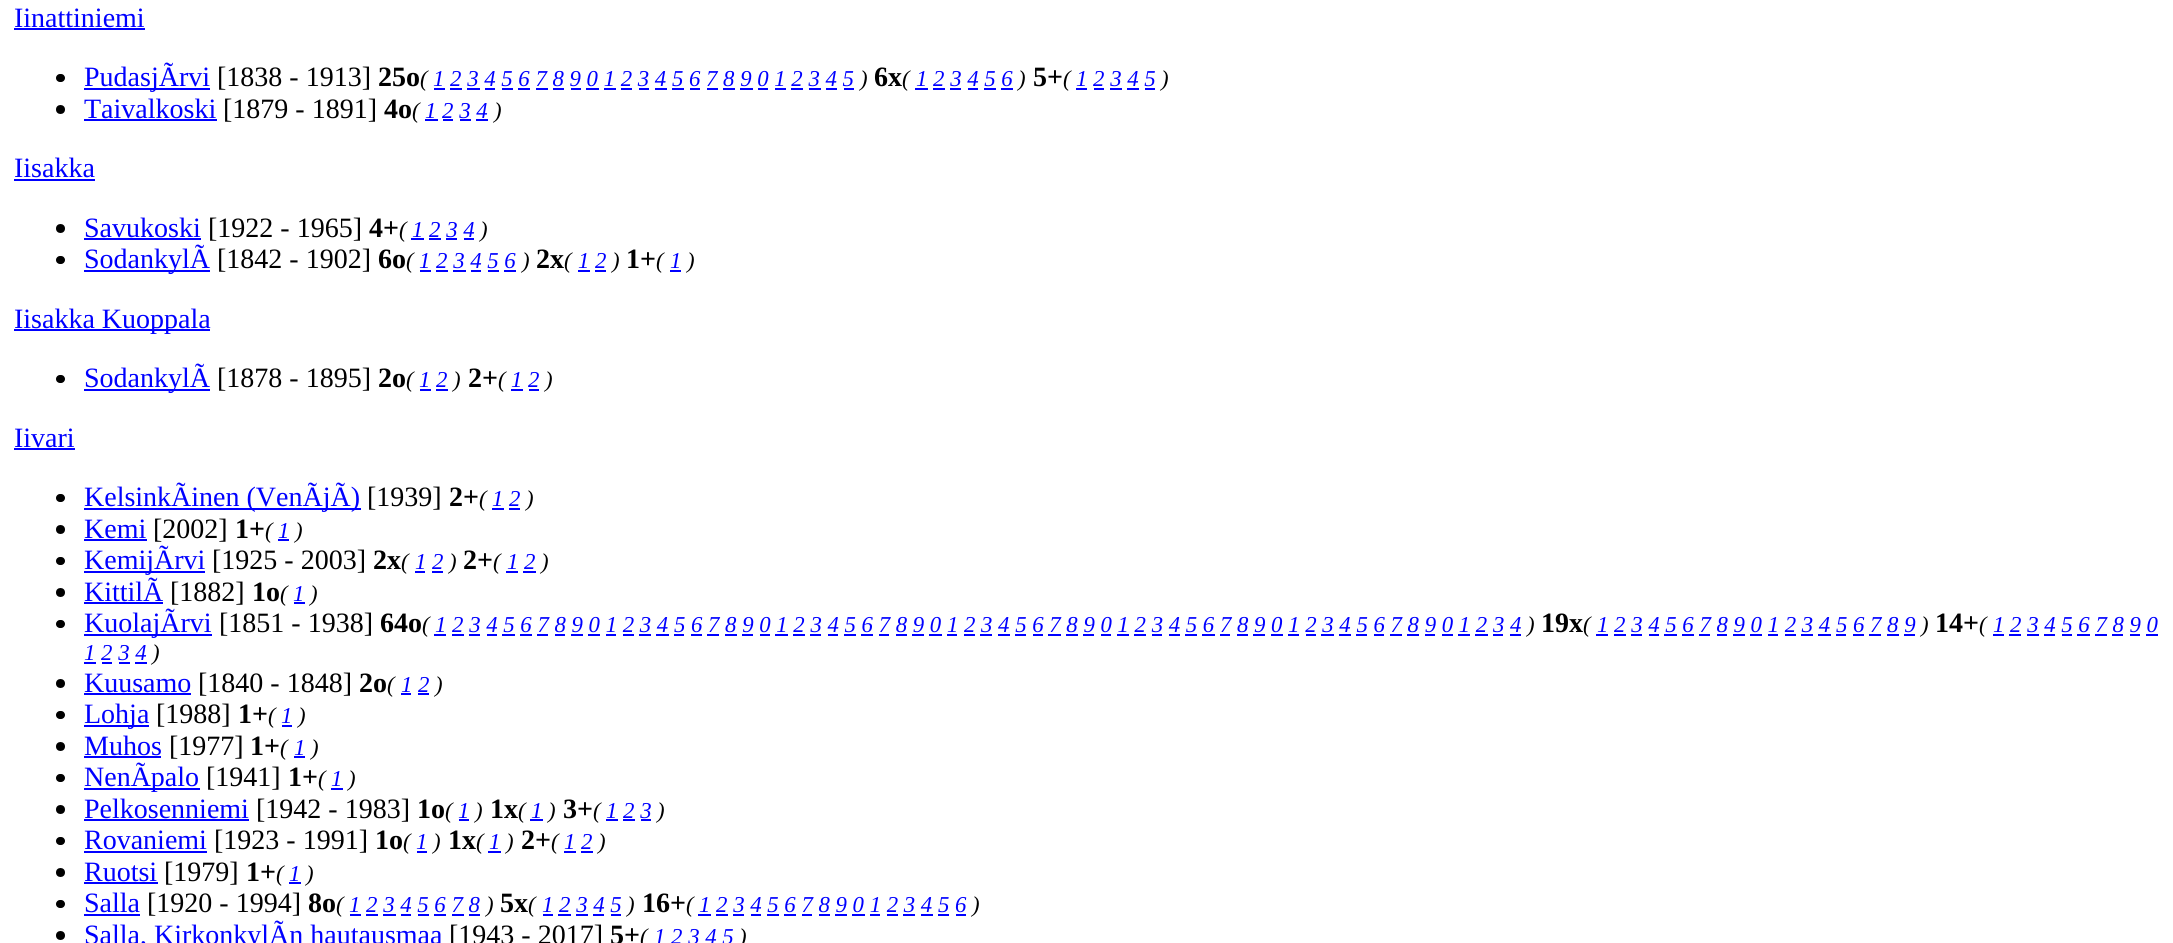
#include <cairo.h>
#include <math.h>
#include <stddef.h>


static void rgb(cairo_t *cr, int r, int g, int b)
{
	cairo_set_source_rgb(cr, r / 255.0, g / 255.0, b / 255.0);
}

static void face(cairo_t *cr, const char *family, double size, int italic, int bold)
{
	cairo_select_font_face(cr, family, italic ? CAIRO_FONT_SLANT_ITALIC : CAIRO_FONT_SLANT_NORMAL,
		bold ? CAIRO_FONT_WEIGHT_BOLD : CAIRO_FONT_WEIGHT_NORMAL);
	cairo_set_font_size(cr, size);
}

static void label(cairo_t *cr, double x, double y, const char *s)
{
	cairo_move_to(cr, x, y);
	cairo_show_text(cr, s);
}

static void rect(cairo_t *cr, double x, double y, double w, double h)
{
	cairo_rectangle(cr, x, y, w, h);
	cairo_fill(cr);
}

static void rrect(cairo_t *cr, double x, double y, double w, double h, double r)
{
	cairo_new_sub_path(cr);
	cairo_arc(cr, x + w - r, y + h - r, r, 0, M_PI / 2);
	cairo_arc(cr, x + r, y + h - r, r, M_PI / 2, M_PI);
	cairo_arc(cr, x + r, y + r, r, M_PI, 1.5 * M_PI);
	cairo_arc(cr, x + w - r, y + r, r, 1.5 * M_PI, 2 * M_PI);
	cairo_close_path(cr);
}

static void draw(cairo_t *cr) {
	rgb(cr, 255, 255, 255);
	cairo_paint(cr);
	face(cr, "Liberation Serif", 28, 0, 0);
	rgb(cr, 0, 0, 255);
	label(cr, 14, 27, "Iinattiniemi");
	rect(cr, 14, 28, 131, 2);
	rgb(cr, 0, 0, 0);
	rrect(cr, 56, 74, 9, 8, 4);
	cairo_fill(cr);
	rgb(cr, 0, 0, 255);
	rect(cr, 84, 88, 126, 2);
	label(cr, 84, 86, "PudasjÃrvi");
	rgb(cr, 0, 0, 0);
	label(cr, 217, 86, "[1838 - 1913]");
	face(cr, "Liberation Serif", 28, 0, 1);
	label(cr, 378, 86, "25o");
	face(cr, "Liberation Serif", 22.75, 1, 0);
	label(cr, 420, 86, "(");
	rgb(cr, 0, 0, 255);
	label(cr, 433, 86, "1 2 3 4 5 6 7 8 9 0 1 2 3 4 5 6 7 8 9 0 1 2 3 4 5");
	rect(cr, 434, 88, 11, 2);
	rect(cr, 450, 88, 12, 2);
	rect(cr, 467, 88, 13, 2);
	rect(cr, 485, 88, 10, 2);
	rect(cr, 502, 88, 11, 2);
	rect(cr, 518, 88, 12, 2);
	rect(cr, 536, 88, 12, 2);
	rect(cr, 553, 88, 11, 2);
	rect(cr, 571, 88, 10, 2);
	rect(cr, 586, 88, 13, 2);
	rect(cr, 604, 88, 12, 2);
	rect(cr, 621, 88, 11, 2);
	rect(cr, 639, 88, 10, 2);
	rect(cr, 655, 88, 12, 2);
	rect(cr, 672, 88, 12, 2);
	rect(cr, 690, 88, 10, 2);
	rect(cr, 707, 88, 11, 2);
	rect(cr, 723, 88, 12, 2);
	rect(cr, 740, 88, 13, 2);
	rect(cr, 758, 88, 10, 2);
	rect(cr, 775, 88, 11, 2);
	rect(cr, 791, 88, 12, 2);
	rect(cr, 809, 88, 12, 2);
	rect(cr, 826, 88, 11, 2);
	rect(cr, 844, 88, 10, 2);
	rgb(cr, 0, 0, 0);
	label(cr, 860, 86, ")");
	face(cr, "Liberation Serif", 28, 0, 1);
	label(cr, 874, 86, "6x");
	face(cr, "Liberation Serif", 22.75, 1, 0);
	label(cr, 902, 86, "(");
	rgb(cr, 0, 0, 255);
	rect(cr, 915, 88, 13, 2);
	label(cr, 916, 86, "1 2 3 4 5 6");
	rect(cr, 933, 88, 12, 2);
	rect(cr, 950, 88, 11, 2);
	rect(cr, 968, 88, 10, 2);
	rect(cr, 984, 88, 12, 2);
	rect(cr, 1001, 88, 12, 2);
	rgb(cr, 0, 0, 0);
	label(cr, 1018, 86, ")");
	face(cr, "Liberation Serif", 28, 0, 1);
	label(cr, 1033, 86, "5+");
	face(cr, "Liberation Serif", 22.75, 1, 0);
	label(cr, 1063, 86, "(");
	rgb(cr, 0, 0, 255);
	rect(cr, 1076, 88, 11, 2);
	label(cr, 1076, 86, "1 2 3 4 5");
	rect(cr, 1094, 88, 10, 2);
	rect(cr, 1110, 88, 12, 2);
	rect(cr, 1127, 88, 12, 2);
	rect(cr, 1145, 88, 10, 2);
	rgb(cr, 0, 0, 0);
	label(cr, 1161, 86, ")");
	cairo_new_path(cr);
	cairo_arc(cr, 60.5, 109.5, 4.5, 0, 2 * M_PI);
	cairo_fill(cr);
	face(cr, "Liberation Serif", 28, 0, 0);
	rgb(cr, 0, 0, 255);
	label(cr, 84, 118, "Taivalkoski");
	rect(cr, 84, 119, 133, 2);
	rgb(cr, 0, 0, 0);
	label(cr, 223, 118, "[1879 - 1891]");
	face(cr, "Liberation Serif", 28, 0, 1);
	label(cr, 384, 118, "4o");
	face(cr, "Liberation Serif", 22.75, 1, 0);
	label(cr, 412, 118, "(");
	rgb(cr, 0, 0, 255);
	rect(cr, 425, 119, 13, 2);
	label(cr, 425, 118, "1 2 3 4");
	rect(cr, 443, 119, 10, 2);
	rect(cr, 460, 119, 11, 2);
	rect(cr, 476, 119, 12, 2);
	rgb(cr, 0, 0, 0);
	label(cr, 494, 118, ")");
	face(cr, "Liberation Serif", 28, 0, 0);
	rgb(cr, 0, 0, 255);
	label(cr, 14, 177, "Iisakka");
	rect(cr, 14, 179, 81, 2);
	rgb(cr, 0, 0, 0);
	cairo_new_path(cr);
	cairo_arc(cr, 60.5, 228.5, 4.5, 0, 2 * M_PI);
	cairo_fill(cr);
	rgb(cr, 0, 0, 255);
	label(cr, 84, 237, "Savukoski");
	rect(cr, 84, 238, 117, 2);
	rgb(cr, 0, 0, 0);
	label(cr, 208, 237, "[1922 - 1965]");
	face(cr, "Liberation Serif", 28, 0, 1);
	label(cr, 369, 237, "4+");
	face(cr, "Liberation Serif", 22.75, 1, 0);
	label(cr, 399, 237, "(");
	rgb(cr, 0, 0, 255);
	rect(cr, 411, 238, 13, 2);
	label(cr, 412, 237, "1 2 3 4");
	rect(cr, 429, 238, 12, 2);
	rect(cr, 446, 238, 11, 2);
	rect(cr, 464, 238, 10, 2);
	rgb(cr, 0, 0, 0);
	label(cr, 480, 237, ")");
	rrect(cr, 56, 256, 9, 8, 4);
	cairo_fill(cr);
	rgb(cr, 0, 0, 255);
	rect(cr, 84, 270, 126, 2);
	face(cr, "Liberation Serif", 28, 0, 0);
	label(cr, 84, 268, "SodankylÃ");
	rgb(cr, 0, 0, 0);
	label(cr, 217, 268, "[1842 - 1902]");
	face(cr, "Liberation Serif", 28, 0, 1);
	label(cr, 378, 268, "6o");
	face(cr, "Liberation Serif", 22.75, 1, 0);
	label(cr, 406, 268, "(");
	rgb(cr, 0, 0, 255);
	label(cr, 419, 268, "1 2 3 4 5 6");
	rect(cr, 420, 270, 11, 2);
	rect(cr, 436, 270, 12, 2);
	rect(cr, 453, 270, 13, 2);
	rect(cr, 471, 270, 10, 2);
	rect(cr, 488, 270, 11, 2);
	rect(cr, 504, 270, 12, 2);
	rgb(cr, 0, 0, 0);
	label(cr, 522, 268, ")");
	face(cr, "Liberation Serif", 28, 0, 1);
	label(cr, 536, 268, "2x");
	face(cr, "Liberation Serif", 22.75, 1, 0);
	label(cr, 564, 268, "(");
	rgb(cr, 0, 0, 255);
	rect(cr, 578, 270, 12, 2);
	label(cr, 578, 268, "1 2");
	rgb(cr, 0, 0, 0);
	label(cr, 612, 268, ")");
	rgb(cr, 0, 0, 255);
	rect(cr, 595, 270, 11, 2);
	face(cr, "Liberation Serif", 28, 0, 1);
	rgb(cr, 0, 0, 0);
	label(cr, 626, 268, "1+");
	face(cr, "Liberation Serif", 22.75, 1, 0);
	label(cr, 656, 268, "(");
	rgb(cr, 0, 0, 255);
	label(cr, 670, 268, "1");
	rect(cr, 670, 270, 11, 2);
	rgb(cr, 0, 0, 0);
	label(cr, 687, 268, ")");
	rgb(cr, 0, 0, 255);
	rect(cr, 14, 329, 196, 2);
	face(cr, "Liberation Serif", 28, 0, 0);
	label(cr, 14, 328, "Iisakka Kuoppala");
	rgb(cr, 0, 0, 0);
	rrect(cr, 56, 375, 9, 8, 4);
	cairo_fill(cr);
	rgb(cr, 0, 0, 255);
	rect(cr, 84, 389, 126, 2);
	label(cr, 84, 387, "SodankylÃ");
	rgb(cr, 0, 0, 0);
	label(cr, 217, 387, "[1878 - 1895]");
	face(cr, "Liberation Serif", 28, 0, 1);
	label(cr, 378, 387, "2o");
	face(cr, "Liberation Serif", 22.75, 1, 0);
	label(cr, 406, 387, "(");
	rgb(cr, 0, 0, 255);
	rect(cr, 420, 389, 11, 2);
	label(cr, 419, 387, "1 2");
	rgb(cr, 0, 0, 0);
	label(cr, 453, 387, ")");
	rgb(cr, 0, 0, 255);
	rect(cr, 436, 389, 12, 2);
	face(cr, "Liberation Serif", 28, 0, 1);
	rgb(cr, 0, 0, 0);
	label(cr, 468, 387, "2+");
	face(cr, "Liberation Serif", 22.75, 1, 0);
	label(cr, 498, 387, "(");
	rgb(cr, 0, 0, 255);
	rect(cr, 511, 389, 12, 2);
	label(cr, 511, 387, "1 2");
	rect(cr, 529, 389, 10, 2);
	rgb(cr, 0, 0, 0);
	label(cr, 545, 387, ")");
	face(cr, "Liberation Serif", 28, 0, 0);
	rgb(cr, 0, 0, 255);
	label(cr, 14, 447, "Iivari");
	rect(cr, 14, 448, 61, 2);
	rgb(cr, 0, 0, 0);
	rrect(cr, 56, 494, 9, 8, 4);
	cairo_fill(cr);
	rgb(cr, 0, 0, 255);
	rect(cr, 84, 508, 277, 2);
	label(cr, 84, 506, "KelsinkÃinen (VenÃjÃ)");
	rgb(cr, 0, 0, 0);
	label(cr, 367, 506, "[1939]");
	face(cr, "Liberation Serif", 28, 0, 1);
	label(cr, 449, 506, "2+");
	face(cr, "Liberation Serif", 22.75, 1, 0);
	label(cr, 479, 506, "(");
	rgb(cr, 0, 0, 255);
	rect(cr, 492, 508, 12, 2);
	label(cr, 492, 506, "1 2");
	rect(cr, 509, 508, 11, 2);
	rgb(cr, 0, 0, 0);
	label(cr, 526, 506, ")");
	cairo_new_path(cr);
	cairo_arc(cr, 60.5, 529.5, 4.5, 0, 2 * M_PI);
	cairo_fill(cr);
	face(cr, "Liberation Serif", 28, 0, 0);
	rgb(cr, 0, 0, 255);
	label(cr, 84, 538, "Kemi");
	rect(cr, 84, 539, 63, 2);
	rgb(cr, 0, 0, 0);
	label(cr, 153, 538, "[2002]");
	face(cr, "Liberation Serif", 28, 0, 1);
	label(cr, 235, 538, "1+");
	face(cr, "Liberation Serif", 22.75, 1, 0);
	label(cr, 265, 538, "(");
	rgb(cr, 0, 0, 255);
	rect(cr, 278, 539, 11, 2);
	label(cr, 278, 538, "1");
	rgb(cr, 0, 0, 0);
	label(cr, 295, 538, ")");
	rrect(cr, 56, 557, 9, 8, 4);
	cairo_fill(cr);
	rgb(cr, 0, 0, 255);
	rect(cr, 84, 571, 121, 2);
	face(cr, "Liberation Serif", 28, 0, 0);
	label(cr, 84, 569, "KemijÃrvi");
	rgb(cr, 0, 0, 0);
	label(cr, 212, 569, "[1925 - 2003]");
	face(cr, "Liberation Serif", 28, 0, 1);
	label(cr, 373, 569, "2x");
	face(cr, "Liberation Serif", 22.75, 1, 0);
	label(cr, 401, 569, "(");
	rgb(cr, 0, 0, 255);
	rect(cr, 415, 571, 10, 2);
	label(cr, 415, 569, "1 2");
	rgb(cr, 0, 0, 0);
	label(cr, 449, 569, ")");
	rgb(cr, 0, 0, 255);
	rect(cr, 432, 571, 11, 2);
	face(cr, "Liberation Serif", 28, 0, 1);
	rgb(cr, 0, 0, 0);
	label(cr, 463, 569, "2+");
	face(cr, "Liberation Serif", 22.75, 1, 0);
	label(cr, 493, 569, "(");
	rgb(cr, 0, 0, 255);
	rect(cr, 506, 571, 12, 2);
	label(cr, 507, 569, "1 2");
	rgb(cr, 0, 0, 0);
	label(cr, 541, 569, ")");
	rgb(cr, 0, 0, 255);
	rect(cr, 523, 571, 13, 2);
	rgb(cr, 0, 0, 0);
	cairo_new_path(cr);
	cairo_arc(cr, 60.5, 592.5, 4.5, 0, 2 * M_PI);
	cairo_fill(cr);
	face(cr, "Liberation Serif", 28, 0, 0);
	rgb(cr, 0, 0, 255);
	label(cr, 84, 601, "KittilÃ");
	rect(cr, 84, 602, 79, 2);
	rgb(cr, 0, 0, 0);
	label(cr, 170, 601, "[1882]");
	face(cr, "Liberation Serif", 28, 0, 1);
	label(cr, 252, 601, "1o");
	face(cr, "Liberation Serif", 22.75, 1, 0);
	label(cr, 280, 601, "(");
	rgb(cr, 0, 0, 255);
	label(cr, 293, 601, "1");
	rect(cr, 294, 602, 11, 2);
	rgb(cr, 0, 0, 0);
	label(cr, 310, 601, ")");
	rrect(cr, 56, 620, 9, 8, 4);
	cairo_fill(cr);
	rgb(cr, 0, 0, 255);
	rect(cr, 84, 634, 128, 2);
	face(cr, "Liberation Serif", 28, 0, 0);
	label(cr, 84, 632, "KuolajÃrvi");
	rgb(cr, 0, 0, 0);
	label(cr, 219, 632, "[1851 - 1938]");
	face(cr, "Liberation Serif", 28, 0, 1);
	label(cr, 380, 632, "64o");
	face(cr, "Liberation Serif", 22.75, 1, 0);
	label(cr, 422, 632, "(");
	rgb(cr, 0, 0, 255);
	rect(cr, 434, 634, 12, 2);
	label(cr, 435, 632, "1 2 3 4 5 6 7 8 9 0 1 2 3 4 5 6 7 8 9 0 1 2 3 4 5 6 7 8 9 0 1 2 3 4 5 6 7 8 9 0 1 2 3 4 5 6 7 8 9 0 1 2 3 4 5 6 7 8 9 0 1 2 3 4");
	rect(cr, 452, 634, 12, 2);
	rect(cr, 469, 634, 11, 2);
	rect(cr, 487, 634, 10, 2);
	rect(cr, 502, 634, 13, 2);
	rect(cr, 520, 634, 12, 2);
	rect(cr, 537, 634, 11, 2);
	rect(cr, 555, 634, 10, 2);
	rect(cr, 571, 634, 12, 2);
	rect(cr, 588, 634, 12, 2);
	rect(cr, 606, 634, 10, 2);
	rect(cr, 623, 634, 11, 2);
	rect(cr, 639, 634, 12, 2);
	rect(cr, 656, 634, 13, 2);
	rect(cr, 674, 634, 10, 2);
	rect(cr, 691, 634, 11, 2);
	rect(cr, 707, 634, 12, 2);
	rect(cr, 725, 634, 12, 2);
	rect(cr, 742, 634, 11, 2);
	rect(cr, 760, 634, 10, 2);
	rect(cr, 775, 634, 13, 2);
	rect(cr, 793, 634, 12, 2);
	rect(cr, 810, 634, 11, 2);
	rect(cr, 828, 634, 10, 2);
	rect(cr, 844, 634, 12, 2);
	rect(cr, 861, 634, 12, 2);
	rect(cr, 879, 634, 10, 2);
	rect(cr, 896, 634, 11, 2);
	rect(cr, 912, 634, 12, 2);
	rect(cr, 929, 634, 13, 2);
	rect(cr, 947, 634, 10, 2);
	rect(cr, 964, 634, 11, 2);
	rect(cr, 980, 634, 12, 2);
	rect(cr, 998, 634, 12, 2);
	rect(cr, 1015, 634, 11, 2);
	rect(cr, 1033, 634, 10, 2);
	rect(cr, 1048, 634, 13, 2);
	rect(cr, 1066, 634, 12, 2);
	rect(cr, 1083, 634, 11, 2);
	rect(cr, 1101, 634, 10, 2);
	rect(cr, 1117, 634, 12, 2);
	rect(cr, 1134, 634, 12, 2);
	rect(cr, 1152, 634, 10, 2);
	rect(cr, 1169, 634, 11, 2);
	rect(cr, 1185, 634, 12, 2);
	rect(cr, 1202, 634, 13, 2);
	rect(cr, 1220, 634, 10, 2);
	rect(cr, 1237, 634, 11, 2);
	rect(cr, 1253, 634, 12, 2);
	rect(cr, 1271, 634, 12, 2);
	rect(cr, 1288, 634, 11, 2);
	rect(cr, 1306, 634, 10, 2);
	rect(cr, 1321, 634, 13, 2);
	rect(cr, 1339, 634, 12, 2);
	rect(cr, 1356, 634, 11, 2);
	rect(cr, 1374, 634, 10, 2);
	rect(cr, 1390, 634, 12, 2);
	rect(cr, 1407, 634, 12, 2);
	rect(cr, 1425, 634, 10, 2);
	rect(cr, 1442, 634, 11, 2);
	rect(cr, 1458, 634, 12, 2);
	rect(cr, 1475, 634, 13, 2);
	rect(cr, 1493, 634, 10, 2);
	rect(cr, 1510, 634, 11, 2);
	rgb(cr, 0, 0, 0);
	label(cr, 1527, 632, ")");
	face(cr, "Liberation Serif", 28, 0, 1);
	label(cr, 1541, 632, "19x");
	face(cr, "Liberation Serif", 22.75, 1, 0);
	label(cr, 1583, 632, "(");
	rgb(cr, 0, 0, 255);
	rect(cr, 1596, 634, 12, 2);
	label(cr, 1597, 632, "1 2 3 4 5 6 7 8 9 0 1 2 3 4 5 6 7 8 9");
	rect(cr, 1614, 634, 12, 2);
	rect(cr, 1631, 634, 11, 2);
	rect(cr, 1649, 634, 10, 2);
	rect(cr, 1664, 634, 13, 2);
	rect(cr, 1682, 634, 12, 2);
	rect(cr, 1699, 634, 11, 2);
	rect(cr, 1717, 634, 10, 2);
	rect(cr, 1733, 634, 12, 2);
	rect(cr, 1750, 634, 12, 2);
	rect(cr, 1768, 634, 10, 2);
	rect(cr, 1785, 634, 11, 2);
	rect(cr, 1801, 634, 12, 2);
	rect(cr, 1818, 634, 13, 2);
	rect(cr, 1836, 634, 10, 2);
	rect(cr, 1853, 634, 11, 2);
	rect(cr, 1869, 634, 12, 2);
	rect(cr, 1887, 634, 12, 2);
	rect(cr, 1904, 634, 11, 2);
	rgb(cr, 0, 0, 0);
	label(cr, 1921, 632, ")");
	face(cr, "Liberation Serif", 28, 0, 1);
	label(cr, 1935, 632, "14+");
	face(cr, "Liberation Serif", 22.75, 1, 0);
	label(cr, 1979, 632, "(");
	rgb(cr, 0, 0, 255);
	rect(cr, 1993, 634, 11, 2);
	label(cr, 1993, 632, "1 2 3 4 5 6 7 8 9 0");
	rect(cr, 2009, 634, 12, 2);
	rect(cr, 2027, 634, 12, 2);
	rect(cr, 2044, 634, 11, 2);
	rect(cr, 2062, 634, 10, 2);
	rect(cr, 2077, 634, 13, 2);
	rect(cr, 2095, 634, 12, 2);
	rect(cr, 2112, 634, 11, 2);
	rect(cr, 2130, 634, 10, 2);
	rect(cr, 2146, 634, 12, 2);
	label(cr, 84, 660, "1 2 3 4");
	rect(cr, 84, 662, 12, 2);
	rect(cr, 102, 662, 10, 2);
	rect(cr, 119, 662, 11, 2);
	rect(cr, 135, 662, 12, 2);
	rgb(cr, 0, 0, 0);
	label(cr, 152, 660, ")");
	cairo_new_path(cr);
	cairo_arc(cr, 60.5, 683.5, 4.5, 0, 2 * M_PI);
	cairo_fill(cr);
	face(cr, "Liberation Serif", 28, 0, 0);
	rgb(cr, 0, 0, 255);
	label(cr, 84, 692, "Kuusamo");
	rect(cr, 84, 693, 107, 2);
	rgb(cr, 0, 0, 0);
	label(cr, 198, 692, "[1840 - 1848]");
	face(cr, "Liberation Serif", 28, 0, 1);
	label(cr, 359, 692, "2o");
	face(cr, "Liberation Serif", 22.75, 1, 0);
	label(cr, 387, 692, "(");
	rgb(cr, 0, 0, 255);
	rect(cr, 401, 693, 10, 2);
	label(cr, 401, 692, "1 2");
	rgb(cr, 0, 0, 0);
	label(cr, 435, 692, ")");
	rgb(cr, 0, 0, 255);
	rect(cr, 418, 693, 11, 2);
	rgb(cr, 0, 0, 0);
	rrect(cr, 56, 711, 9, 8, 4);
	cairo_fill(cr);
	rgb(cr, 0, 0, 255);
	rect(cr, 84, 725, 65, 2);
	face(cr, "Liberation Serif", 28, 0, 0);
	label(cr, 84, 723, "Lohja");
	rgb(cr, 0, 0, 0);
	label(cr, 156, 723, "[1988]");
	face(cr, "Liberation Serif", 28, 0, 1);
	label(cr, 238, 723, "1+");
	face(cr, "Liberation Serif", 22.75, 1, 0);
	label(cr, 268, 723, "(");
	rgb(cr, 0, 0, 255);
	label(cr, 281, 723, "1");
	rect(cr, 282, 725, 10, 2);
	rgb(cr, 0, 0, 0);
	label(cr, 298, 723, ")");
	cairo_new_path(cr);
	cairo_arc(cr, 60.5, 746.5, 4.5, 0, 2 * M_PI);
	cairo_fill(cr);
	face(cr, "Liberation Serif", 28, 0, 0);
	rgb(cr, 0, 0, 255);
	label(cr, 84, 755, "Muhos");
	rect(cr, 84, 756, 77, 2);
	rgb(cr, 0, 0, 0);
	label(cr, 169, 755, "[1977]");
	face(cr, "Liberation Serif", 28, 0, 1);
	label(cr, 250, 755, "1+");
	face(cr, "Liberation Serif", 22.75, 1, 0);
	label(cr, 280, 755, "(");
	rgb(cr, 0, 0, 255);
	rect(cr, 294, 756, 11, 2);
	label(cr, 294, 755, "1");
	rgb(cr, 0, 0, 0);
	label(cr, 311, 755, ")");
	rrect(cr, 56, 774, 9, 8, 4);
	cairo_fill(cr);
	rgb(cr, 0, 0, 255);
	rect(cr, 84, 788, 116, 2);
	face(cr, "Liberation Serif", 28, 0, 0);
	label(cr, 84, 786, "NenÃpalo");
	rgb(cr, 0, 0, 0);
	label(cr, 206, 786, "[1941]");
	face(cr, "Liberation Serif", 28, 0, 1);
	label(cr, 288, 786, "1+");
	face(cr, "Liberation Serif", 22.75, 1, 0);
	label(cr, 318, 786, "(");
	rgb(cr, 0, 0, 255);
	rect(cr, 331, 788, 12, 2);
	label(cr, 331, 786, "1");
	rgb(cr, 0, 0, 0);
	label(cr, 348, 786, ")");
	cairo_new_path(cr);
	cairo_arc(cr, 60.5, 809.5, 4.5, 0, 2 * M_PI);
	cairo_fill(cr);
	face(cr, "Liberation Serif", 28, 0, 0);
	rgb(cr, 0, 0, 255);
	label(cr, 84, 818, "Pelkosenniemi");
	rect(cr, 84, 819, 165, 2);
	rgb(cr, 0, 0, 0);
	label(cr, 256, 818, "[1942 - 1983]");
	face(cr, "Liberation Serif", 28, 0, 1);
	label(cr, 417, 818, "1o");
	face(cr, "Liberation Serif", 22.75, 1, 0);
	label(cr, 445, 818, "(");
	rgb(cr, 0, 0, 255);
	label(cr, 458, 818, "1");
	rect(cr, 459, 819, 10, 2);
	rgb(cr, 0, 0, 0);
	label(cr, 475, 818, ")");
	face(cr, "Liberation Serif", 28, 0, 1);
	label(cr, 490, 818, "1x");
	face(cr, "Liberation Serif", 22.75, 1, 0);
	label(cr, 518, 818, "(");
	rgb(cr, 0, 0, 255);
	rect(cr, 530, 819, 13, 2);
	label(cr, 531, 818, "1");
	rgb(cr, 0, 0, 0);
	label(cr, 548, 818, ")");
	face(cr, "Liberation Serif", 28, 0, 1);
	label(cr, 563, 818, "3+");
	face(cr, "Liberation Serif", 22.75, 1, 0);
	label(cr, 593, 818, "(");
	rgb(cr, 0, 0, 255);
	rect(cr, 606, 819, 12, 2);
	label(cr, 606, 818, "1 2 3");
	rect(cr, 623, 819, 12, 2);
	rect(cr, 641, 819, 10, 2);
	rgb(cr, 0, 0, 0);
	label(cr, 657, 818, ")");
	rrect(cr, 56, 837, 9, 8, 4);
	cairo_fill(cr);
	face(cr, "Liberation Serif", 28, 0, 0);
	rgb(cr, 0, 0, 255);
	label(cr, 84, 849, "Rovaniemi");
	rect(cr, 84, 851, 123, 2);
	rgb(cr, 0, 0, 0);
	label(cr, 214, 849, "[1923 - 1991]");
	face(cr, "Liberation Serif", 28, 0, 1);
	label(cr, 375, 849, "1o");
	face(cr, "Liberation Serif", 22.75, 1, 0);
	label(cr, 403, 849, "(");
	rgb(cr, 0, 0, 255);
	label(cr, 416, 849, "1");
	rect(cr, 417, 851, 10, 2);
	rgb(cr, 0, 0, 0);
	label(cr, 433, 849, ")");
	face(cr, "Liberation Serif", 28, 0, 1);
	label(cr, 448, 849, "1x");
	face(cr, "Liberation Serif", 22.75, 1, 0);
	label(cr, 476, 849, "(");
	rgb(cr, 0, 0, 255);
	rect(cr, 488, 851, 13, 2);
	label(cr, 489, 849, "1");
	rgb(cr, 0, 0, 0);
	label(cr, 506, 849, ")");
	face(cr, "Liberation Serif", 28, 0, 1);
	label(cr, 521, 849, "2+");
	face(cr, "Liberation Serif", 22.75, 1, 0);
	label(cr, 551, 849, "(");
	rgb(cr, 0, 0, 255);
	rect(cr, 564, 851, 12, 2);
	label(cr, 564, 849, "1 2");
	rgb(cr, 0, 0, 0);
	label(cr, 598, 849, ")");
	rgb(cr, 0, 0, 255);
	rect(cr, 581, 851, 12, 2);
	rgb(cr, 0, 0, 0);
	cairo_new_path(cr);
	cairo_arc(cr, 60.5, 872.5, 4.5, 0, 2 * M_PI);
	cairo_fill(cr);
	face(cr, "Liberation Serif", 28, 0, 0);
	rgb(cr, 0, 0, 255);
	label(cr, 84, 881, "Ruotsi");
	rect(cr, 84, 882, 74, 2);
	rgb(cr, 0, 0, 0);
	label(cr, 164, 881, "[1979]");
	face(cr, "Liberation Serif", 28, 0, 1);
	label(cr, 246, 881, "1+");
	face(cr, "Liberation Serif", 22.75, 1, 0);
	label(cr, 276, 881, "(");
	rgb(cr, 0, 0, 255);
	rect(cr, 289, 882, 12, 2);
	label(cr, 289, 881, "1");
	rgb(cr, 0, 0, 0);
	label(cr, 306, 881, ")");
	rrect(cr, 56, 900, 9, 8, 4);
	cairo_fill(cr);
	face(cr, "Liberation Serif", 28, 0, 0);
	rgb(cr, 0, 0, 255);
	label(cr, 84, 912, "Salla");
	rect(cr, 84, 914, 56, 2);
	rgb(cr, 0, 0, 0);
	label(cr, 147, 912, "[1920 - 1994]");
	face(cr, "Liberation Serif", 28, 0, 1);
	label(cr, 308, 912, "8o");
	face(cr, "Liberation Serif", 22.75, 1, 0);
	label(cr, 336, 912, "(");
	rgb(cr, 0, 0, 255);
	label(cr, 349, 912, "1 2 3 4 5 6 7 8");
	rect(cr, 350, 914, 11, 2);
	rect(cr, 366, 914, 12, 2);
	rect(cr, 383, 914, 13, 2);
	rect(cr, 401, 914, 10, 2);
	rect(cr, 418, 914, 11, 2);
	rect(cr, 434, 914, 12, 2);
	rect(cr, 452, 914, 12, 2);
	rect(cr, 469, 914, 11, 2);
	rgb(cr, 0, 0, 0);
	label(cr, 486, 912, ")");
	face(cr, "Liberation Serif", 28, 0, 1);
	label(cr, 500, 912, "5x");
	face(cr, "Liberation Serif", 22.75, 1, 0);
	label(cr, 528, 912, "(");
	rgb(cr, 0, 0, 255);
	label(cr, 542, 912, "1 2 3 4 5");
	rect(cr, 543, 914, 10, 2);
	rect(cr, 558, 914, 13, 2);
	rect(cr, 576, 914, 12, 2);
	rect(cr, 593, 914, 11, 2);
	rect(cr, 611, 914, 10, 2);
	rgb(cr, 0, 0, 0);
	label(cr, 627, 912, ")");
	face(cr, "Liberation Serif", 28, 0, 1);
	label(cr, 642, 912, "16+");
	face(cr, "Liberation Serif", 22.75, 1, 0);
	label(cr, 686, 912, "(");
	rgb(cr, 0, 0, 255);
	rect(cr, 698, 914, 13, 2);
	label(cr, 699, 912, "1 2 3 4 5 6 7 8 9 0 1 2 3 4 5 6");
	rect(cr, 716, 914, 12, 2);
	rect(cr, 733, 914, 11, 2);
	rect(cr, 751, 914, 10, 2);
	rect(cr, 767, 914, 12, 2);
	rect(cr, 784, 914, 12, 2);
	rect(cr, 802, 914, 10, 2);
	rect(cr, 819, 914, 11, 2);
	rect(cr, 835, 914, 12, 2);
	rect(cr, 852, 914, 13, 2);
	rect(cr, 870, 914, 10, 2);
	rect(cr, 887, 914, 11, 2);
	rect(cr, 903, 914, 12, 2);
	rect(cr, 921, 914, 12, 2);
	rect(cr, 938, 914, 11, 2);
	rect(cr, 956, 914, 10, 2);
	rgb(cr, 0, 0, 0);
	label(cr, 972, 912, ")");
	cairo_new_path(cr);
	cairo_arc(cr, 60.5, 935.5, 4.5, 0, 2 * M_PI);
	cairo_fill(cr);
	face(cr, "Liberation Serif", 28, 0, 0);
	rgb(cr, 0, 0, 255);
	label(cr, 84, 944, "Salla, KirkonkylÃn hautausmaa");
	rgb(cr, 0, 0, 0);
	label(cr, 449, 944, "[1943 - 2017]");
	face(cr, "Liberation Serif", 28, 0, 1);
	label(cr, 610, 944, "5+");
	face(cr, "Liberation Serif", 22.75, 1, 0);
	label(cr, 640, 944, "(");
	rgb(cr, 0, 0, 255);
	label(cr, 654, 944, "1 2 3 4 5");
	rgb(cr, 0, 0, 0);
	label(cr, 739, 944, ")");
}

int main(void) {
	cairo_surface_t *surface = cairo_image_surface_create(CAIRO_FORMAT_RGB24, 2173, 943);
	cairo_t *cr = cairo_create(surface);
	cairo_font_options_t *options = cairo_font_options_create();
	cairo_font_options_set_hint_metrics(options, CAIRO_HINT_METRICS_OFF);
	cairo_font_options_set_hint_style(options, CAIRO_HINT_STYLE_NONE);
	cairo_set_font_options(cr, options);
	cairo_set_miter_limit(cr, 4);
	draw(cr);
	cairo_surface_write_to_png(surface, "render.png");
	cairo_font_options_destroy(options);
	cairo_destroy(cr);
	cairo_surface_destroy(surface);
	return 0;
}
